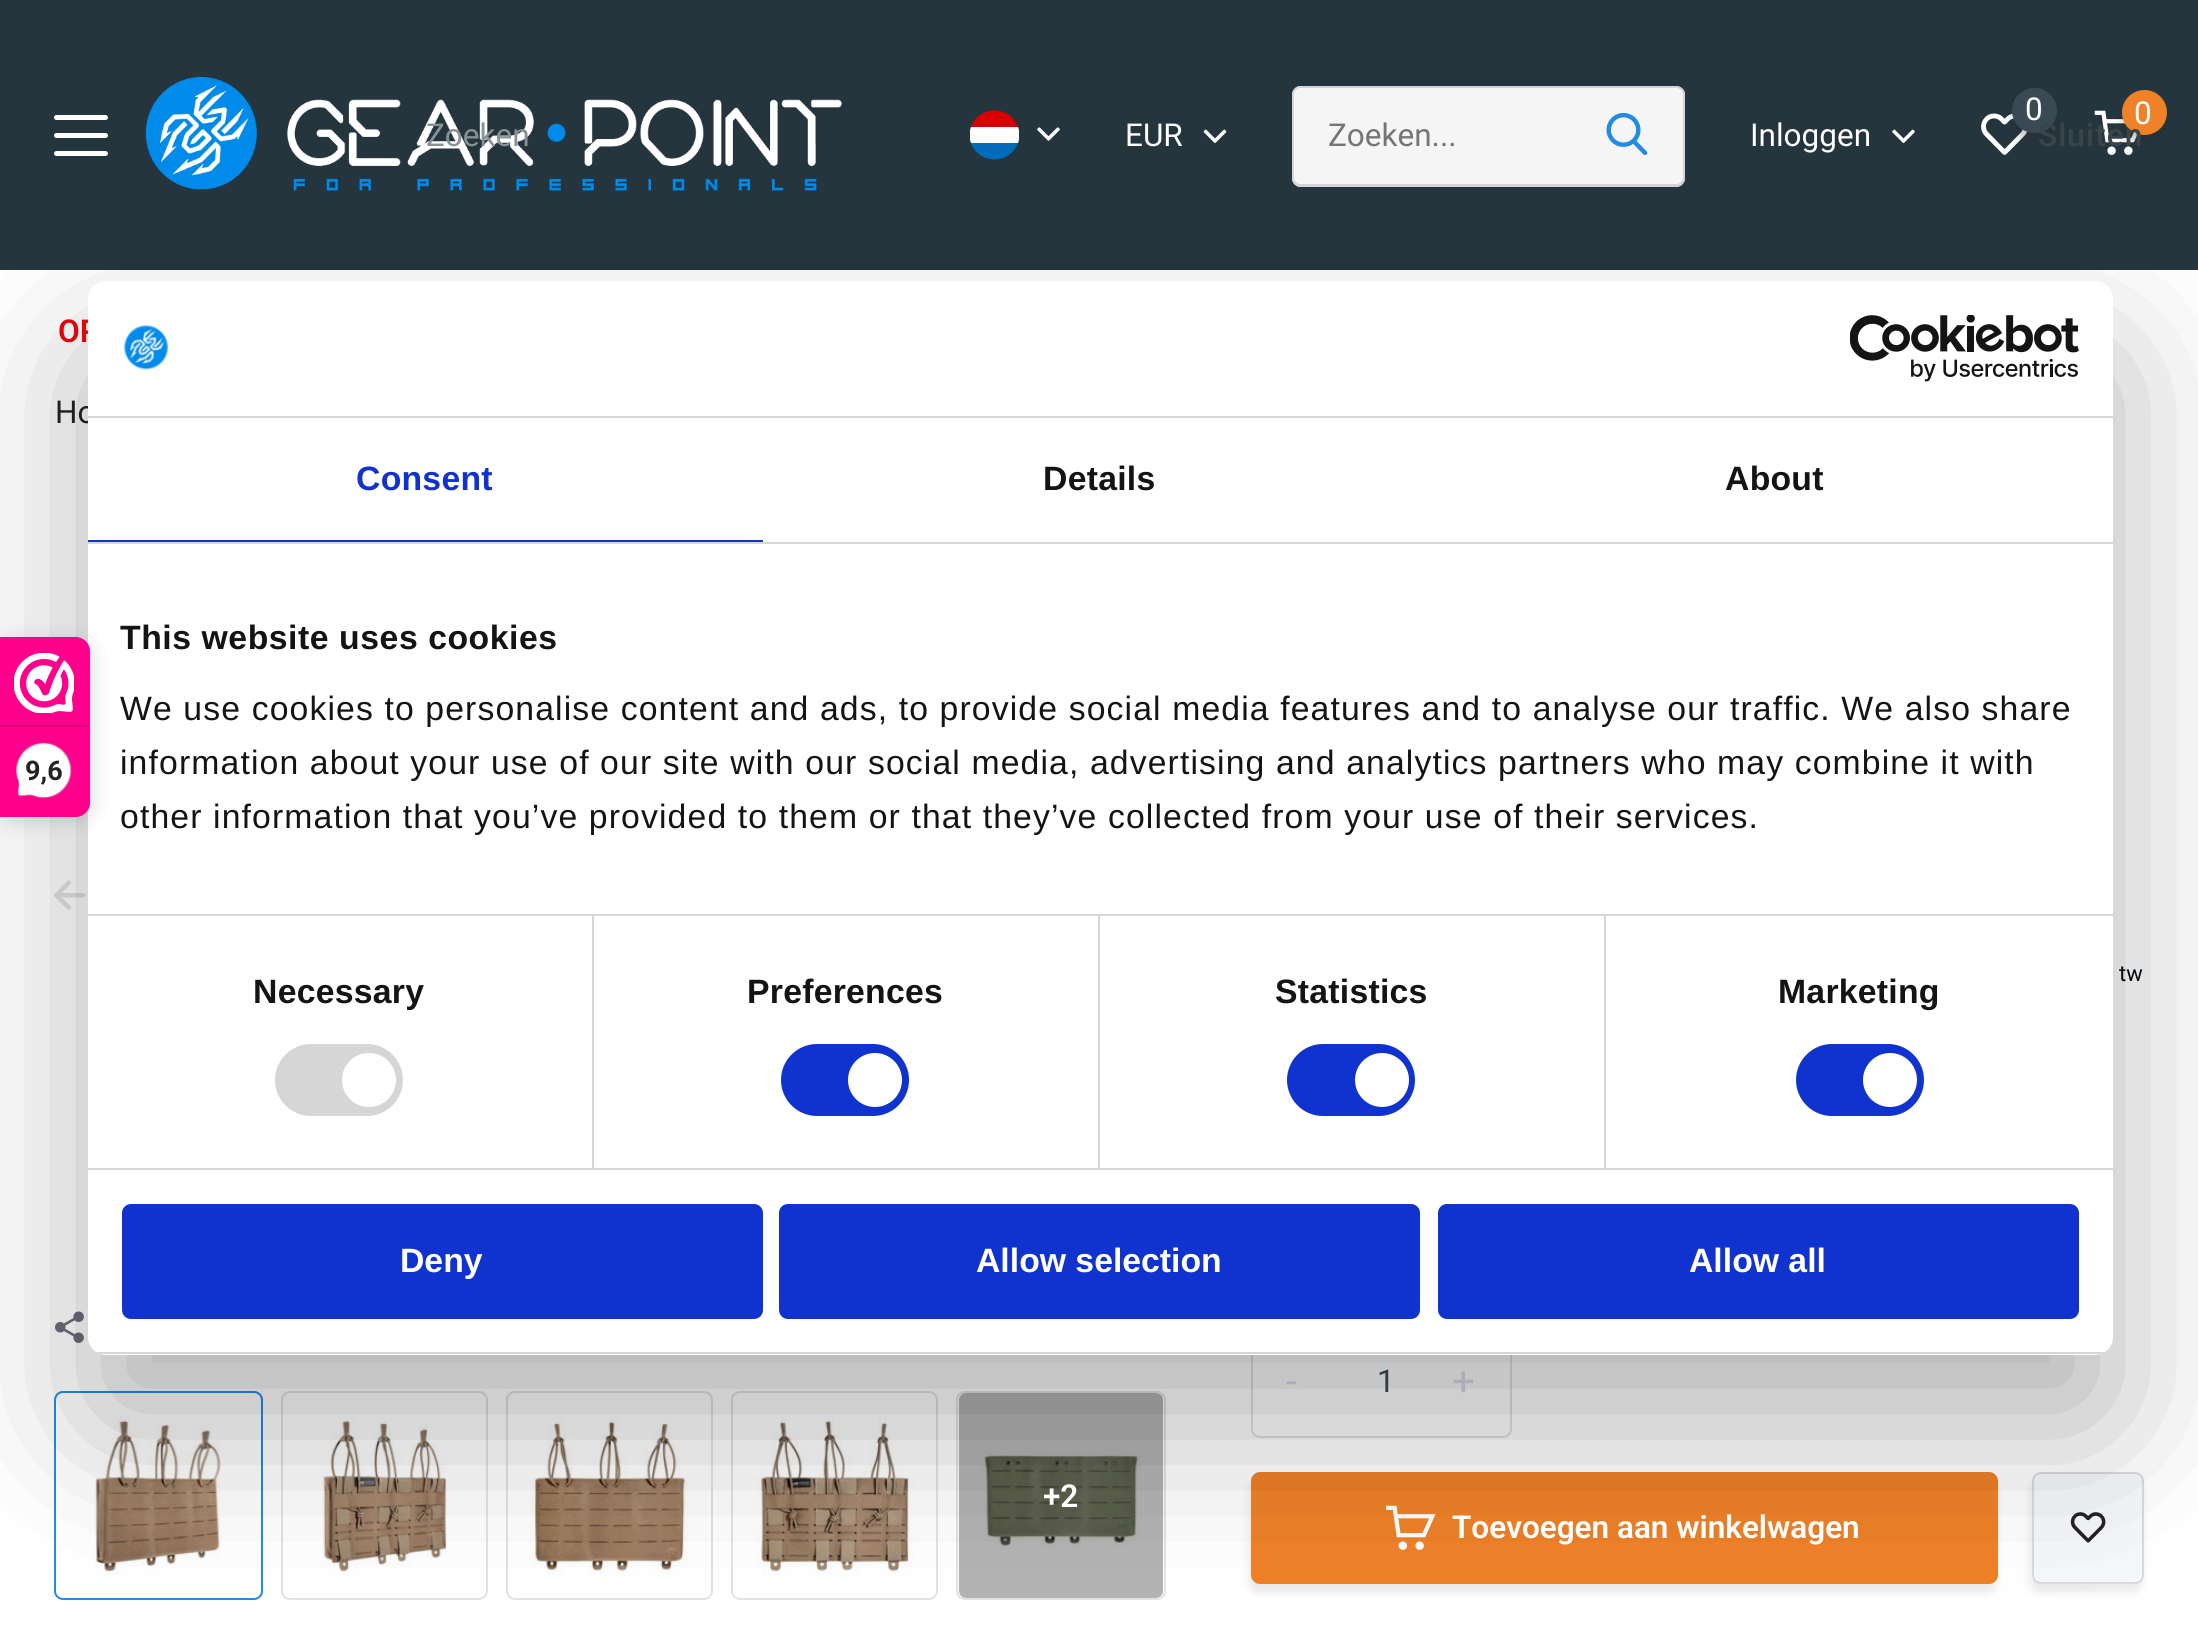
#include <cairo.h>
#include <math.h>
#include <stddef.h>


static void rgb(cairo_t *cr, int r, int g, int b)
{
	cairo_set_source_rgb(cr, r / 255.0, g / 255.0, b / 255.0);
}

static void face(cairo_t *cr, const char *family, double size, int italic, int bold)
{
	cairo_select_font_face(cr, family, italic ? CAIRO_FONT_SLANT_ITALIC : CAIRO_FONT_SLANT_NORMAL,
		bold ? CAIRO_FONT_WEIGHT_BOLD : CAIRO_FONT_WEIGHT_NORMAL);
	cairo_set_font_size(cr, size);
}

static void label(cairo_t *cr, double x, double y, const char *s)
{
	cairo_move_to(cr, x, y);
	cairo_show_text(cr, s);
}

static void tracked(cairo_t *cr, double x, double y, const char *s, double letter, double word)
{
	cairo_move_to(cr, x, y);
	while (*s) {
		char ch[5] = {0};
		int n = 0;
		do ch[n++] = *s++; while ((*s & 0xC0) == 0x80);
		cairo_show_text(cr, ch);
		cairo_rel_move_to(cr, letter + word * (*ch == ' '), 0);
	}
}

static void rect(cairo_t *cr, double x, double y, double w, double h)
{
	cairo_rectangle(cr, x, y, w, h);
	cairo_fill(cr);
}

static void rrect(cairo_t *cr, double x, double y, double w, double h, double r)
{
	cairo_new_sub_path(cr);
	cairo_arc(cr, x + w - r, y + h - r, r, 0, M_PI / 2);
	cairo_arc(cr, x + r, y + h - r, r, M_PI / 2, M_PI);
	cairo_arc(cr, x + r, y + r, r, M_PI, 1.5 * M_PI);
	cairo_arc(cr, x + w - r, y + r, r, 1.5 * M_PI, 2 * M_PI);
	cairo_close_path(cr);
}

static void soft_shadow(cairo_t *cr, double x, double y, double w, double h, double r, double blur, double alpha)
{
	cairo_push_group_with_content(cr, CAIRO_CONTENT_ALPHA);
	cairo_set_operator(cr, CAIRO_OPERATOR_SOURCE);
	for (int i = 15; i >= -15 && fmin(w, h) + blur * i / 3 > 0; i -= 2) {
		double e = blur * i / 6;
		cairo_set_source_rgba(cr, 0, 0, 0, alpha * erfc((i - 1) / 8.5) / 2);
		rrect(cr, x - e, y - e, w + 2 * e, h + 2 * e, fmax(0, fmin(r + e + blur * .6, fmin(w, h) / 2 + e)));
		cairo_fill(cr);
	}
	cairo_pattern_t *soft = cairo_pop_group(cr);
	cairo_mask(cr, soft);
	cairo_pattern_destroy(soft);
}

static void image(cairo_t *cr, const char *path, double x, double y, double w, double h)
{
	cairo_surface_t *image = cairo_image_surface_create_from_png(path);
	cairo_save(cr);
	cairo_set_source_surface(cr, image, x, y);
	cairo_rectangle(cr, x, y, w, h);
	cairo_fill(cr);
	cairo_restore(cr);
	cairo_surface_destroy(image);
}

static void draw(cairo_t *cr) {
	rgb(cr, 255, 255, 255);
	cairo_paint(cr);
	rgb(cr, 36, 53, 62);
	rect(cr, 0, 0, 2198, 270);
	rgb(cr, 255, 255, 255);
	rrect(cr, 54, 115, 54, 5, 2.5);
	cairo_fill(cr);
	rrect(cr, 54, 133, 54, 5, 2.5);
	cairo_fill(cr);
	rrect(cr, 54, 151, 54, 5, 2.5);
	cairo_fill(cr);
	image(cr, "image0.png", 145, 77, 697, 114);
	rgb(cr, 219, 0, 0);
	cairo_new_path(cr);
	cairo_move_to(cr, 971, 127);
	cairo_line_to(cr, 1018, 127);
	cairo_curve_to(cr, 1010, 105, 979, 105, 971, 127);
	cairo_close_path(cr);
	cairo_fill(cr);
	cairo_save(cr);
	cairo_rectangle(cr, 970, 110, 49, 50);
	cairo_clip(cr);
	rgb(cr, 255, 255, 255);
	cairo_new_path(cr);
	cairo_move_to(cr, 971, 127);
	cairo_curve_to(cr, 969, 132, 969, 138, 971, 143);
	cairo_line_to(cr, 1018, 143);
	cairo_curve_to(cr, 1020, 138, 1020, 132, 1018, 127);
	cairo_close_path(cr);
	cairo_fill(cr);
	cairo_restore(cr);
	image(cr, "image1.png", 1037, 127, 23, 14);
	rgb(cr, 0, 107, 185);
	cairo_new_path(cr);
	cairo_move_to(cr, 1018, 143);
	cairo_line_to(cr, 971, 143);
	cairo_curve_to(cr, 979, 165, 1010, 165, 1018, 143);
	cairo_close_path(cr);
	cairo_fill(cr);
	face(cr, "Roboto", 31.5, 0, 0);
	rgb(cr, 255, 255, 255);
	label(cr, 1125, 146, "EUR");
	image(cr, "image2.png", 1203, 129, 24, 14);
	rgb(cr, 245, 245, 245);
	cairo_new_path(cr);
	cairo_move_to(cr, 1301, 86);
	cairo_line_to(cr, 1573, 86);
	cairo_line_to(cr, 1573, 187);
	cairo_line_to(cr, 1301, 187);
	cairo_curve_to(cr, 1296, 187, 1292, 183, 1292, 178);
	cairo_line_to(cr, 1292, 95);
	cairo_curve_to(cr, 1292, 90, 1296, 86, 1301, 86);
	cairo_close_path(cr);
	cairo_fill(cr);
	rgb(cr, 212, 212, 212);
	cairo_set_fill_rule(cr, CAIRO_FILL_RULE_EVEN_ODD);
	cairo_new_path(cr);
	cairo_move_to(cr, 1300, 86);
	cairo_line_to(cr, 1573, 86);
	cairo_line_to(cr, 1573, 187);
	cairo_line_to(cr, 1300, 187);
	cairo_curve_to(cr, 1296, 187, 1292, 183, 1292, 178);
	cairo_line_to(cr, 1292, 94);
	cairo_curve_to(cr, 1292, 90, 1296, 86, 1300, 86);
	cairo_close_path(cr);
	cairo_move_to(cr, 1300, 88);
	cairo_line_to(cr, 1573, 88);
	cairo_line_to(cr, 1573, 184);
	cairo_line_to(cr, 1300, 184);
	cairo_curve_to(cr, 1297, 184, 1294, 181, 1294, 178);
	cairo_line_to(cr, 1294, 94);
	cairo_curve_to(cr, 1294, 91, 1297, 88, 1300, 88);
	cairo_close_path(cr);
	cairo_fill(cr);
	rgb(cr, 117, 117, 117);
	label(cr, 1328, 146, "Zoeken...");
	rgb(cr, 245, 245, 245);
	cairo_new_path(cr);
	cairo_move_to(cr, 1573, 86);
	cairo_line_to(cr, 1676, 86);
	cairo_curve_to(cr, 1681, 86, 1685, 90, 1685, 95);
	cairo_line_to(cr, 1685, 178);
	cairo_curve_to(cr, 1685, 183, 1681, 187, 1676, 187);
	cairo_line_to(cr, 1573, 187);
	cairo_close_path(cr);
	cairo_fill(cr);
	rgb(cr, 212, 212, 212);
	cairo_new_path(cr);
	cairo_move_to(cr, 1573, 86);
	cairo_line_to(cr, 1676, 86);
	cairo_curve_to(cr, 1681, 86, 1685, 90, 1685, 94);
	cairo_line_to(cr, 1685, 178);
	cairo_curve_to(cr, 1685, 183, 1681, 187, 1676, 187);
	cairo_line_to(cr, 1573, 187);
	cairo_close_path(cr);
	cairo_move_to(cr, 1573, 88);
	cairo_line_to(cr, 1676, 88);
	cairo_curve_to(cr, 1680, 88, 1683, 91, 1683, 94);
	cairo_line_to(cr, 1683, 178);
	cairo_curve_to(cr, 1683, 181, 1680, 184, 1676, 184);
	cairo_line_to(cr, 1573, 184);
	cairo_close_path(cr);
	cairo_fill(cr);
	image(cr, "image3.png", 1606, 112, 42, 43);
	rgb(cr, 255, 255, 255);
	label(cr, 1750, 146, "Inloggen");
	image(cr, "image4.png", 1892, 129, 23, 14);
	image(cr, "image5.png", 1981, 113, 47, 42);
	rgb(cr, 40, 40, 48);
	soft_shadow(cr, 2012, 97, 45, 45, 22.5, 4.5, 0.25);
	rgb(cr, 57, 74, 84);
	cairo_arc(cr, 2034.5, 110.5, 22.5, 0, 2 * M_PI);
	cairo_fill(cr);
	rgb(cr, 255, 255, 255);
	label(cr, 2025, 120, "0");
	image(cr, "image6.png", 2094, 110, 44, 45);
	rgb(cr, 40, 40, 48);
	soft_shadow(cr, 2122, 99, 45, 45, 22.5, 4.5, 0.25);
	rgb(cr, 239, 129, 40);
	cairo_arc(cr, 2144.5, 112.5, 22.5, 0, 2 * M_PI);
	cairo_fill(cr);
	rgb(cr, 255, 255, 255);
	label(cr, 2134, 124, "0");
	rgb(cr, 136, 145, 150);
	label(cr, 426, 146, "Zoeken");
	face(cr, "Roboto Medium", 31.5, 0, 0);
	rgb(cr, 58, 69, 74);
	tracked(cr, 2038, 146, "Sluiten", 1.12, 0);
	face(cr, "Roboto SemiBold", 31.5, 0, 0);
	rgb(cr, 240, 6, 9);
	label(cr, 58, 342, "OP");
	face(cr, "Roboto", 31.5, 0, 0);
	rgb(cr, 35, 35, 35);
	label(cr, 55, 423, "Ho");
	image(cr, "image11.png", 54, 880, 32, 30);
	image(cr, "image12.png", 55, 1311, 29, 32);
	rrect(cr, 55, 1392, 207, 207, 8);
	rgb(cr, 35, 139, 230);
	cairo_stroke(cr);
	image(cr, "image13.png", 94, 1416, 127, 159);
	rrect(cr, 282, 1392, 205, 207, 8);
	rgb(cr, 226, 226, 226);
	cairo_stroke(cr);
	image(cr, "image14.png", 321, 1416, 126, 159);
	rrect(cr, 507, 1392, 205, 207, 8);
	cairo_stroke(cr);
	image(cr, "image15.png", 530, 1415, 158, 160);
	rrect(cr, 732, 1392, 205, 207, 8);
	cairo_stroke(cr);
	image(cr, "image16.png", 755, 1415, 159, 160);
	rrect(cr, 957, 1392, 208, 207, 8);
	cairo_stroke(cr);
	image(cr, "image17.png", 981, 1451, 160, 98);
	cairo_set_source_rgba(cr, 0, 0, 0, 0.3);
	rrect(cr, 959, 1393, 204, 205, 7);
	cairo_fill(cr);
	rrect(cr, 1252, 1326, 259, 111, 8);
	rgb(cr, 226, 226, 226);
	cairo_stroke(cr);
	rgb(cr, 0, 0, 0);
	soft_shadow(cr, 1249, 1481, 747, 112, 9, 4.5, 0.08);
	rgb(cr, 239, 129, 40);
	rrect(cr, 1251, 1472, 747, 112, 9);
	cairo_fill(cr);
	image(cr, "image18.png", 1386, 1505, 50, 45);
	rgb(cr, 0, 0, 0);
	soft_shadow(cr, 2030, 1481, 112, 112, 9, 4.5, 0.08);
	rgb(cr, 245, 247, 250);
	rrect(cr, 2033, 1473, 110, 110, 8);
	cairo_fill_preserve(cr);
	rgb(cr, 218, 218, 218);
	cairo_stroke(cr);
	image(cr, "image19.png", 2070, 1512, 36, 31);
	rgb(cr, 0, 0, 0);
	soft_shadow(cr, 88, 353, 2025, 1074, 18, 76.5, 0.3);
	rgb(cr, 255, 255, 255);
	rrect(cr, 88, 281, 2025, 1074, 18);
	cairo_fill(cr);
	rgb(cr, 0, 0, 0);
	soft_shadow(cr, 0, 641, 90, 180, 14, 11, 0.15);
	rgb(cr, 254, 0, 140);
	cairo_new_path(cr);
	cairo_move_to(cr, 0, 637);
	cairo_line_to(cr, 76, 637);
	cairo_curve_to(cr, 83.5, 637, 90, 643.5, 90, 651);
	cairo_line_to(cr, 90, 803);
	cairo_curve_to(cr, 90, 810.5, 83.5, 817, 76, 817);
	cairo_line_to(cr, 0, 817);
	cairo_close_path(cr);
	cairo_fill(cr);
	image(cr, "image7.png", 14, 653, 60, 60);
	rgb(cr, 216, 0, 119);
	rect(cr, 0, 725, 88, 2);
	image(cr, "image8.png", 16, 742, 56, 57);
	face(cr, "Roboto", 27, 0, 1);
	rgb(cr, 35, 35, 35);
	label(cr, 25, 780, "9,6");
	rgb(cr, 214, 214, 214);
	rect(cr, 88, 416, 2025, 2);
	image(cr, "image9.png", 123, 325, 46, 45);
	image(cr, "image10.png", 1850, 315, 229, 67);
	rect(cr, 88, 542, 2025, 2);
	rgb(cr, 16, 50, 207);
	rect(cr, 88, 540, 675, 2);
	face(cr, "Liberation Sans", 33.75, 0, 1);
	tracked(cr, 356, 490, "Consent", 0.25, 0);
	rgb(cr, 20, 20, 20);
	tracked(cr, 1043, 490, "Details", 0.25, 0);
	tracked(cr, 1725, 490, "About", 0.25, 0);
	rgb(cr, 214, 214, 214);
	rect(cr, 88, 914, 2025, 2);
	rgb(cr, 20, 20, 20);
	tracked(cr, 120, 649, "This website uses cookies", 0.55, 0);
	face(cr, "Liberation Sans", 33.75, 0, 0);
	tracked(cr, 120, 720, "We use cookies to personalise content and ads, to provide social media features and to analyse our traffic. We also share", 1.12, 0);
	tracked(cr, 120, 774, "information about your use of our site with our social media, advertising and analytics partners who may combine it with", 1.12, 0);
	tracked(cr, 120, 828, "other information that you’ve provided to them or that they’ve collected from your use of their services.", 1.12, 0);
	rgb(cr, 214, 214, 214);
	rect(cr, 88, 1168, 2025, 2);
	rect(cr, 592, 916, 2, 252);
	face(cr, "Liberation Sans", 33.75, 0, 1);
	rgb(cr, 20, 20, 20);
	tracked(cr, 253, 1003, "Necessary", 0.25, 0);
	rgb(cr, 214, 214, 214);
	rrect(cr, 275, 1044, 128, 72, 36);
	cairo_fill(cr);
	rgb(cr, 255, 255, 255);
	cairo_arc(cr, 369, 1080, 27, 0, 2 * M_PI);
	cairo_fill(cr);
	rgb(cr, 214, 214, 214);
	rect(cr, 1098, 916, 2, 252);
	rgb(cr, 20, 20, 20);
	tracked(cr, 747, 1003, "Preferences", 0.25, 0);
	rgb(cr, 16, 50, 207);
	rrect(cr, 781, 1044, 128, 72, 36);
	cairo_fill(cr);
	rgb(cr, 255, 255, 255);
	cairo_arc(cr, 875, 1080, 27, 0, 2 * M_PI);
	cairo_fill(cr);
	rgb(cr, 214, 214, 214);
	rect(cr, 1604, 916, 2, 252);
	rgb(cr, 20, 20, 20);
	tracked(cr, 1275, 1003, "Statistics", 0.25, 0);
	rgb(cr, 16, 50, 207);
	rrect(cr, 1287, 1044, 128, 72, 36);
	cairo_fill(cr);
	rgb(cr, 255, 255, 255);
	cairo_arc(cr, 1382, 1080, 27, 0, 2 * M_PI);
	cairo_fill(cr);
	rgb(cr, 20, 20, 20);
	tracked(cr, 1778, 1003, "Marketing", 0.25, 0);
	rgb(cr, 16, 50, 207);
	rrect(cr, 1796, 1044, 128, 72, 36);
	cairo_fill(cr);
	rgb(cr, 255, 255, 255);
	cairo_arc(cr, 1890, 1080, 27, 0, 2 * M_PI);
	cairo_fill(cr);
	cairo_save(cr);
	cairo_set_fill_rule(cr, CAIRO_FILL_RULE_WINDING);
	rrect(cr, 88, 281, 2025, 1074, 18);
	cairo_clip(cr);
	rgb(cr, 214, 214, 214);
	rect(cr, 88, 1352, 2025, 2);
	cairo_restore(cr);
	rgb(cr, 16, 50, 207);
	rrect(cr, 124.5, 1206.5, 636, 110, 6.5);
	cairo_fill_preserve(cr);
	cairo_set_line_width(cr, 5);
	cairo_stroke(cr);
	rgb(cr, 255, 255, 255);
	label(cr, 400, 1272, "Deny");
	rgb(cr, 16, 50, 207);
	rrect(cr, 781.5, 1206.5, 636, 110, 6.5);
	cairo_fill_preserve(cr);
	cairo_stroke(cr);
	rgb(cr, 255, 255, 255);
	label(cr, 976, 1272, "Allow selection");
	rgb(cr, 16, 50, 207);
	rrect(cr, 1440.5, 1206.5, 636, 110, 6.5);
	cairo_fill_preserve(cr);
	cairo_stroke(cr);
	rgb(cr, 255, 255, 255);
	label(cr, 1689, 1272, "Allow all");
	face(cr, "Roboto SemiBold", 31.5, 0, 0);
	label(cr, 1043, 1507, "+2");
	face(cr, "Roboto", 22, 0, 0);
	rgb(cr, 3, 8, 14);
	label(cr, 2119, 981, "tw");
	face(cr, "Roboto", 31.5, 0, 0);
	rgb(cr, 48, 60, 67);
	label(cr, 1377, 1392, "1");
	face(cr, "Roboto", 40, 0, 0);
	rgb(cr, 173, 173, 186);
	label(cr, 1286, 1395, "-");
	label(cr, 1452, 1395, "+");
	face(cr, "Roboto SemiBold", 31.5, 0, 0);
	rgb(cr, 255, 255, 255);
	label(cr, 1452, 1538, "Toevoegen aan winkelwagen");
}

int main(void) {
	cairo_surface_t *surface = cairo_image_surface_create(CAIRO_FORMAT_RGB24, 2198, 1633);
	cairo_t *cr = cairo_create(surface);
	cairo_font_options_t *options = cairo_font_options_create();
	cairo_font_options_set_hint_metrics(options, CAIRO_HINT_METRICS_OFF);
	cairo_font_options_set_hint_style(options, CAIRO_HINT_STYLE_NONE);
	cairo_set_font_options(cr, options);
	cairo_set_miter_limit(cr, 4);
	draw(cr);
	cairo_surface_write_to_png(surface, "render.png");
	cairo_font_options_destroy(options);
	cairo_destroy(cr);
	cairo_surface_destroy(surface);
	return 0;
}
